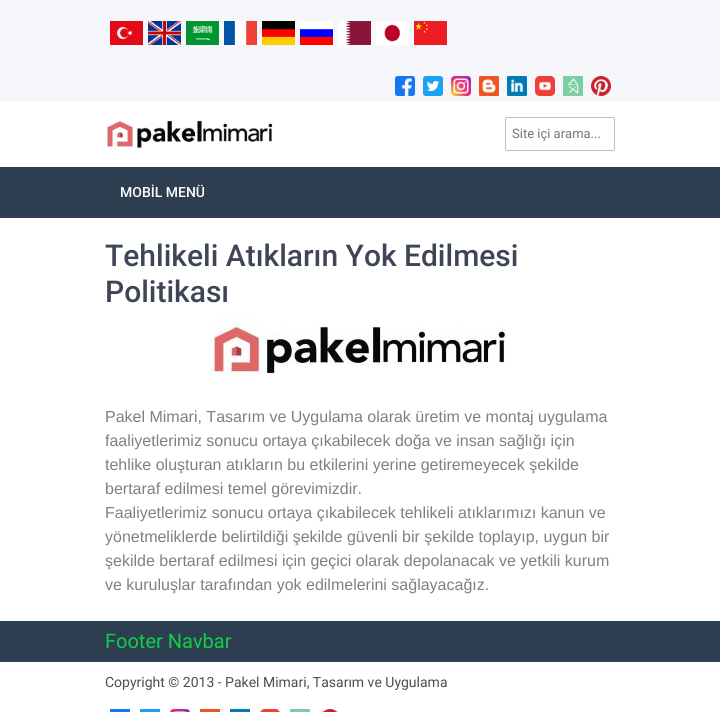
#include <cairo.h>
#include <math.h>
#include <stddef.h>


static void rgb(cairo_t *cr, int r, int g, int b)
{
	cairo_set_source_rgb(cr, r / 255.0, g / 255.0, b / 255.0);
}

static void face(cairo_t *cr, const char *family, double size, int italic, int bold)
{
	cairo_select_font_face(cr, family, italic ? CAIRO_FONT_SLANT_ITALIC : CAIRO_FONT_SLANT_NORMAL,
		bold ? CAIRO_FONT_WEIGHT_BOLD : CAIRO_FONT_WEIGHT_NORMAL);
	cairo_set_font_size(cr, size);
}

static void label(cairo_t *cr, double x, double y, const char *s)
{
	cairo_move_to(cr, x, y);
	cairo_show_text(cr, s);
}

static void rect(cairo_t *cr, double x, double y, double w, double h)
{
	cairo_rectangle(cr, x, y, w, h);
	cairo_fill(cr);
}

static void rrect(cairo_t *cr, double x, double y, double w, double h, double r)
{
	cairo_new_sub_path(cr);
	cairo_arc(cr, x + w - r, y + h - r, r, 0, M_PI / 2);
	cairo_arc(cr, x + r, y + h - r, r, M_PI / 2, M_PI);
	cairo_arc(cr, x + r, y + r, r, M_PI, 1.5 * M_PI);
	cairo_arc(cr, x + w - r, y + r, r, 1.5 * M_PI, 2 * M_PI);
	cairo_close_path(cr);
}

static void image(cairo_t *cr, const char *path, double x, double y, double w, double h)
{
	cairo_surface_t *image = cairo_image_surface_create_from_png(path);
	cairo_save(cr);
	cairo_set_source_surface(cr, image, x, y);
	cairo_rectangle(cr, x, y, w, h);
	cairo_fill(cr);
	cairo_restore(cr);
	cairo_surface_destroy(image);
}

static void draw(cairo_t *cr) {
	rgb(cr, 255, 255, 255);
	cairo_paint(cr);
	rgb(cr, 245, 247, 250);
	rect(cr, 0, 0, 720, 101);
	image(cr, "image0.png", 110, 21, 33, 24);
	image(cr, "image1.png", 148, 21, 33, 24);
	image(cr, "image2.png", 186, 21, 33, 24);
	image(cr, "image3.png", 224, 21, 33, 24);
	image(cr, "image4.png", 262, 21, 33, 24);
	image(cr, "image5.png", 300, 21, 33, 24);
	image(cr, "image6.png", 338, 21, 33, 24);
	image(cr, "image7.png", 376, 21, 33, 24);
	image(cr, "image8.png", 414, 21, 33, 24);
	image(cr, "image9.png", 395, 76, 20, 20);
	image(cr, "image10.png", 423, 76, 20, 20);
	image(cr, "image11.png", 451, 76, 20, 20);
	image(cr, "image12.png", 479, 76, 20, 20);
	image(cr, "image13.png", 507, 76, 20, 20);
	image(cr, "image14.png", 535, 76, 20, 20);
	image(cr, "image15.png", 563, 76, 20, 20);
	image(cr, "image16.png", 591, 76, 20, 20);
	image(cr, "image17.png", 107, 120, 166, 28);
	rrect(cr, 505.5, 117.5, 109, 33, 1.5);
	rgb(cr, 192, 192, 192);
	cairo_set_line_width(cr, 1);
	cairo_stroke(cr);
	face(cr, "Roboto", 13, 0, 0);
	rgb(cr, 117, 117, 117);
	label(cr, 512, 138, "Site içi arama...");
	rgb(cr, 44, 62, 80);
	rect(cr, 0, 167, 720, 51);
	face(cr, "Roboto Medium", 14, 0, 0);
	rgb(cr, 255, 255, 255);
	label(cr, 120, 197, "MOBİL MENÜ");
	face(cr, "Roboto Medium", 30, 0, 0);
	rgb(cr, 62, 69, 85);
	label(cr, 105, 266, "Tehlikeli Atıkların Yok Edilmesi");
	label(cr, 105, 302, "Politikası");
	image(cr, "image18.png", 210, 318, 296, 63);
	face(cr, "Liberation Sans", 16, 0, 0);
	rgb(cr, 128, 128, 128);
	label(cr, 105, 422, "Pakel Mimari, Tasarım ve Uygulama olarak üretim ve montaj uygulama");
	label(cr, 105, 446, "faaliyetlerimiz sonucu ortaya çıkabilecek doğa ve insan sağlığı için");
	label(cr, 105, 470, "tehlike oluşturan atıkların bu etkilerini yerine getiremeyecek şekilde");
	label(cr, 105, 494, "bertaraf edilmesi temel görevimizdir.");
	label(cr, 105, 518, "Faaliyetlerimiz sonucu ortaya çıkabilecek tehlikeli atıklarımızı kanun ve");
	label(cr, 105, 542, "yönetmeliklerde belirtildiği şekilde güvenli bir şekilde toplayıp, uygun bir");
	label(cr, 105, 566, "şekilde bertaraf edilmesi için geçici olarak depolanacak ve yetkili kurum");
	label(cr, 105, 590, "ve kuruluşlar tarafından yok edilmelerini sağlayacağız.");
	rgb(cr, 44, 62, 80);
	rect(cr, 0, 621, 720, 41);
	cairo_new_path(cr);
	cairo_move_to(cr, 0, 661.5);
	cairo_line_to(cr, 720, 661.5);
	rgb(cr, 54, 71, 88);
	cairo_set_dash(cr, (double[]){3, 2.01}, 2, 0);
	cairo_stroke(cr);
	face(cr, "Roboto", 20, 0, 0);
	rgb(cr, 14, 209, 69);
	label(cr, 105, 648, "Footer Navbar");
	face(cr, "Roboto", 14, 0, 0);
	rgb(cr, 74, 78, 85);
	label(cr, 105, 687, "Copyright © 2013 - Pakel Mimari, Tasarım ve Uygulama");
	rgb(cr, 23, 119, 242);
	rect(cr, 110, 709, 20, 3);
	rgb(cr, 29, 161, 242);
	rect(cr, 140, 709, 20, 3);
	image(cr, "image19.png", 170, 709, 20, 3);
	rgb(cr, 240, 82, 34);
	rect(cr, 200, 709, 20, 3);
	rgb(cr, 0, 123, 181);
	rect(cr, 230, 709, 20, 3);
	image(cr, "image20.png", 260, 709, 20, 3);
	image(cr, "image21.png", 290, 709, 20, 3);
	image(cr, "image22.png", 322, 709, 16, 3);
}

int main(void) {
	cairo_surface_t *surface = cairo_image_surface_create(CAIRO_FORMAT_RGB24, 720, 712);
	cairo_t *cr = cairo_create(surface);
	cairo_font_options_t *options = cairo_font_options_create();
	cairo_font_options_set_hint_metrics(options, CAIRO_HINT_METRICS_OFF);
	cairo_font_options_set_hint_style(options, CAIRO_HINT_STYLE_NONE);
	cairo_set_font_options(cr, options);
	cairo_set_miter_limit(cr, 4);
	draw(cr);
	cairo_surface_write_to_png(surface, "render.png");
	cairo_font_options_destroy(options);
	cairo_destroy(cr);
	cairo_surface_destroy(surface);
	return 0;
}
